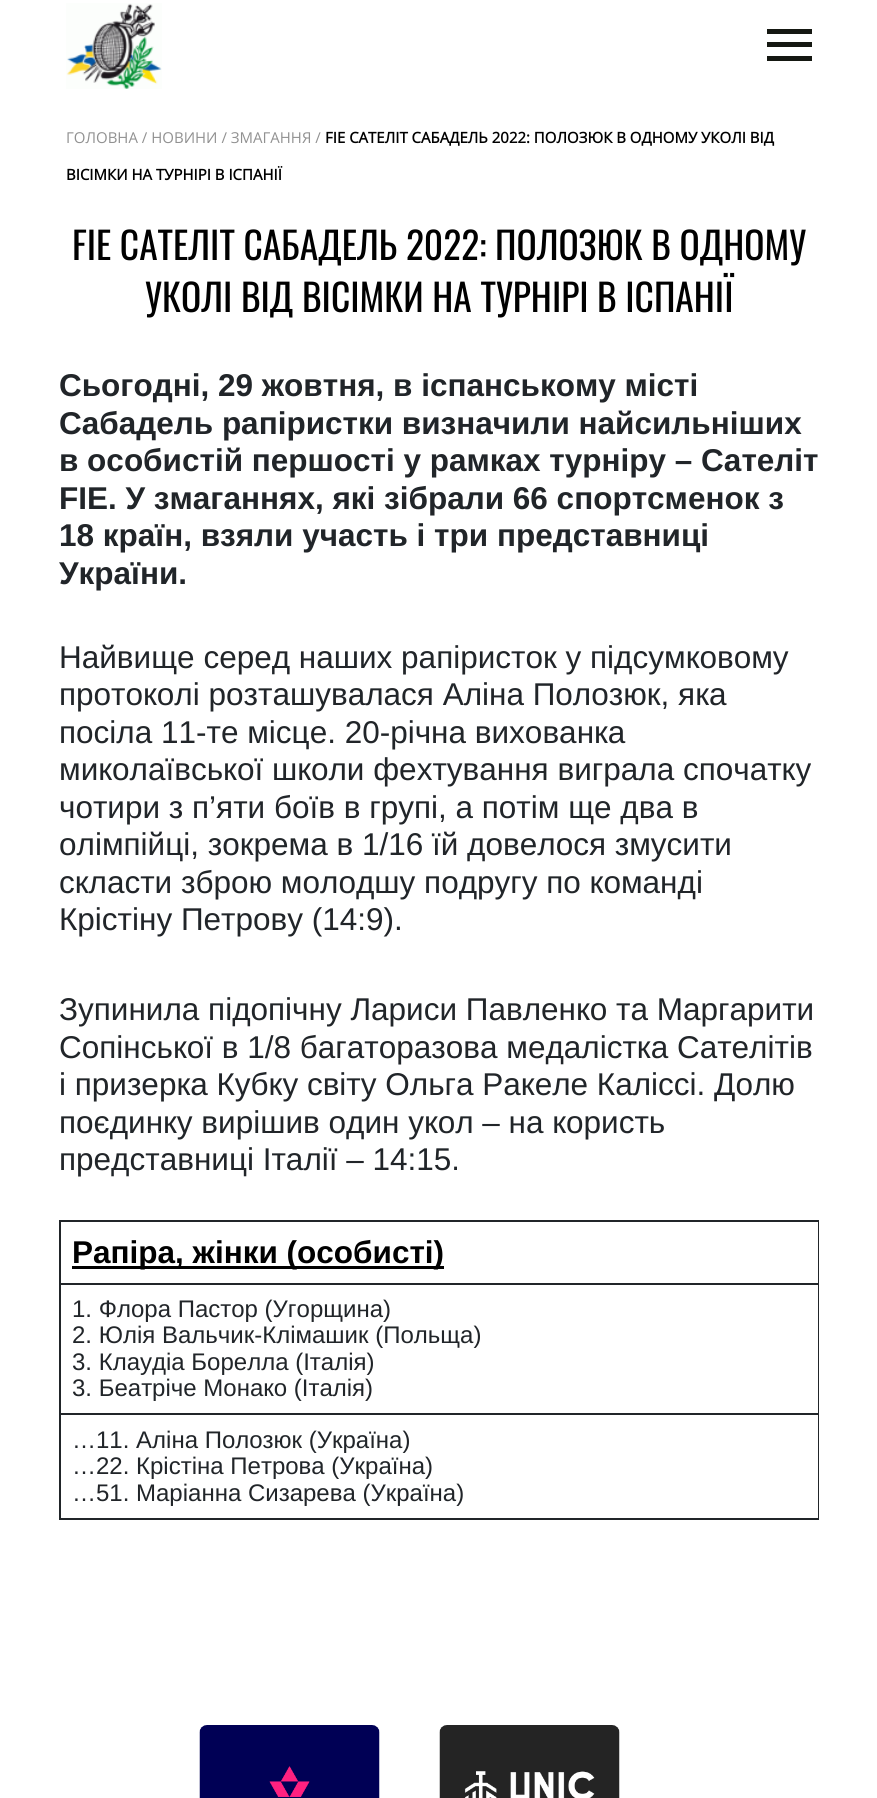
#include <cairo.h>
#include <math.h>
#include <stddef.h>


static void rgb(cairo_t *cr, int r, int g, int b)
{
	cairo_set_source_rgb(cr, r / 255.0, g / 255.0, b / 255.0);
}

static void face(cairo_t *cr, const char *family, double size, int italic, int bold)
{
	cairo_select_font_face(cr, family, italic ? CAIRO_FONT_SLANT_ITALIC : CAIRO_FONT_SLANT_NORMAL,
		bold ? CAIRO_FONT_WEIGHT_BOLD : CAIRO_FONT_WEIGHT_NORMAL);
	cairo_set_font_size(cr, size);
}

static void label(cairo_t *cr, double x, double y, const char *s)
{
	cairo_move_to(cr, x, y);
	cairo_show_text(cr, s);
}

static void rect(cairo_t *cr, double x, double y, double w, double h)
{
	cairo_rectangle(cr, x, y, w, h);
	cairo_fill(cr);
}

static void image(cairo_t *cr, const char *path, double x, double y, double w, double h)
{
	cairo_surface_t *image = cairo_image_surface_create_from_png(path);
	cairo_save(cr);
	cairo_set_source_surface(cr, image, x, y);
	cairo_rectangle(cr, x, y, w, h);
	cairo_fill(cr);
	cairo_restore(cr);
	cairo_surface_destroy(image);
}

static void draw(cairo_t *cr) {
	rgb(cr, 255, 255, 255);
	cairo_paint(cr);
	image(cr, "image0.png", 66, 3, 96, 86);
	rgb(cr, 21, 24, 18);
	rect(cr, 767, 29, 45, 5);
	rect(cr, 767, 42, 45, 5);
	rect(cr, 767, 56, 45, 5);
	face(cr, "Open Sans", 15, 0, 0);
	rgb(cr, 145, 145, 145);
	label(cr, 66, 143, "ГОЛОВНА / НОВИНИ / ЗМАГАННЯ /");
	face(cr, "Open Sans", 15, 0, 1);
	rgb(cr, 0, 0, 0);
	label(cr, 325, 143, "FIE САТЕЛІТ САБАДЕЛЬ 2022: ПОЛОЗЮК В ОДНОМУ УКОЛІ ВІД");
	label(cr, 66, 180, "ВІСІМКИ НА ТУРНІРІ В ІСПАНІЇ");
	face(cr, "Oswald", 37.5, 0, 0);
	label(cr, 72, 260, "FIE САТЕЛІТ САБАДЕЛЬ 2022: ПОЛОЗЮК В ОДНОМУ");
	label(cr, 145, 312, "УКОЛІ ВІД ВІСІМКИ НА ТУРНІРІ В ІСПАНІЇ");
	face(cr, "Liberation Sans", 31.5, 0, 1);
	rgb(cr, 33, 37, 41);
	label(cr, 59, 396, "Сьогодні, 29 жовтня, в іспанському місті");
	label(cr, 59, 434, "Сабадель рапіристки визначили найсильніших");
	label(cr, 59, 471, "в особистій першості у рамках турніру – Сателіт");
	label(cr, 59, 509, "FIE. У змаганнях, які зібрали 66 спортсменок з");
	label(cr, 59, 546, "18 країн, взяли участь і три представниці");
	label(cr, 59, 584, "України.");
	face(cr, "Liberation Sans", 31.5, 0, 0);
	label(cr, 59, 668, "Найвище серед наших рапіристок у підсумковому");
	label(cr, 59, 705, "протоколі розташувалася Аліна Полозюк, яка");
	label(cr, 59, 743, "посіла 11-те місце. 20-річна вихованка");
	label(cr, 59, 780, "миколаївської школи фехтування виграла спочатку");
	label(cr, 59, 818, "чотири з п’яти боїв в групі, а потім ще два в");
	label(cr, 59, 855, "олімпійці, зокрема в 1/16 їй довелося змусити");
	label(cr, 59, 893, "скласти зброю молодшу подругу по команді");
	label(cr, 59, 930, "Крістіну Петрову (14:9).");
	label(cr, 59, 1020, "Зупинила підопічну Лариси Павленко та Маргарити");
	label(cr, 59, 1058, "Сопінської в 1/8 багаторазова медалістка Сателітів");
	label(cr, 59, 1095, "і призерка Кубку світу Ольга Ракеле Каліссі. Долю");
	label(cr, 59, 1133, "поєдинку вирішив один укол – на користь");
	label(cr, 59, 1170, "представниці Італії – 14:15.");
	rect(cr, 59, 1220, 760, 2);
	rect(cr, 59, 1283, 760, 2);
	rect(cr, 59, 1413, 760, 2);
	rect(cr, 818, 1413, 1, 107);
	rect(cr, 818, 1283, 1, 132);
	rect(cr, 818, 1220, 1, 64);
	rect(cr, 59, 1518, 760, 2);
	rect(cr, 59, 1413, 2, 107);
	rect(cr, 59, 1283, 2, 132);
	rect(cr, 59, 1220, 2, 64);
	rgb(cr, 0, 0, 0);
	rect(cr, 72, 1266, 372, 3);
	face(cr, "Liberation Sans", 31.5, 0, 1);
	label(cr, 72, 1263, "Рапіра, жінки (особисті)");
	face(cr, "Liberation Sans", 24, 0, 0);
	rgb(cr, 33, 37, 41);
	label(cr, 72, 1317, "1. Флора Пастор (Угорщина)");
	label(cr, 72, 1343, "2. Юлія Вальчик-Клімашик (Польща)");
	label(cr, 72, 1370, "3. Клаудіа Борелла (Італія)");
	label(cr, 72, 1396, "3. Беатріче Монако (Італія)");
	label(cr, 72, 1448, "…11. Аліна Полозюк (Україна)");
	label(cr, 72, 1474, "…22. Крістіна Петрова (Україна)");
	label(cr, 72, 1501, "…51. Маріанна Сизарева (Україна)");
	image(cr, "image1.png", 199, 1725, 181, 73);
	image(cr, "image2.png", 439, 1725, 181, 73);
}

int main(void) {
	cairo_surface_t *surface = cairo_image_surface_create(CAIRO_FORMAT_RGB24, 877, 1798);
	cairo_t *cr = cairo_create(surface);
	cairo_font_options_t *options = cairo_font_options_create();
	cairo_font_options_set_hint_metrics(options, CAIRO_HINT_METRICS_OFF);
	cairo_font_options_set_hint_style(options, CAIRO_HINT_STYLE_NONE);
	cairo_set_font_options(cr, options);
	cairo_set_miter_limit(cr, 4);
	draw(cr);
	cairo_surface_write_to_png(surface, "render.png");
	cairo_font_options_destroy(options);
	cairo_destroy(cr);
	cairo_surface_destroy(surface);
	return 0;
}
